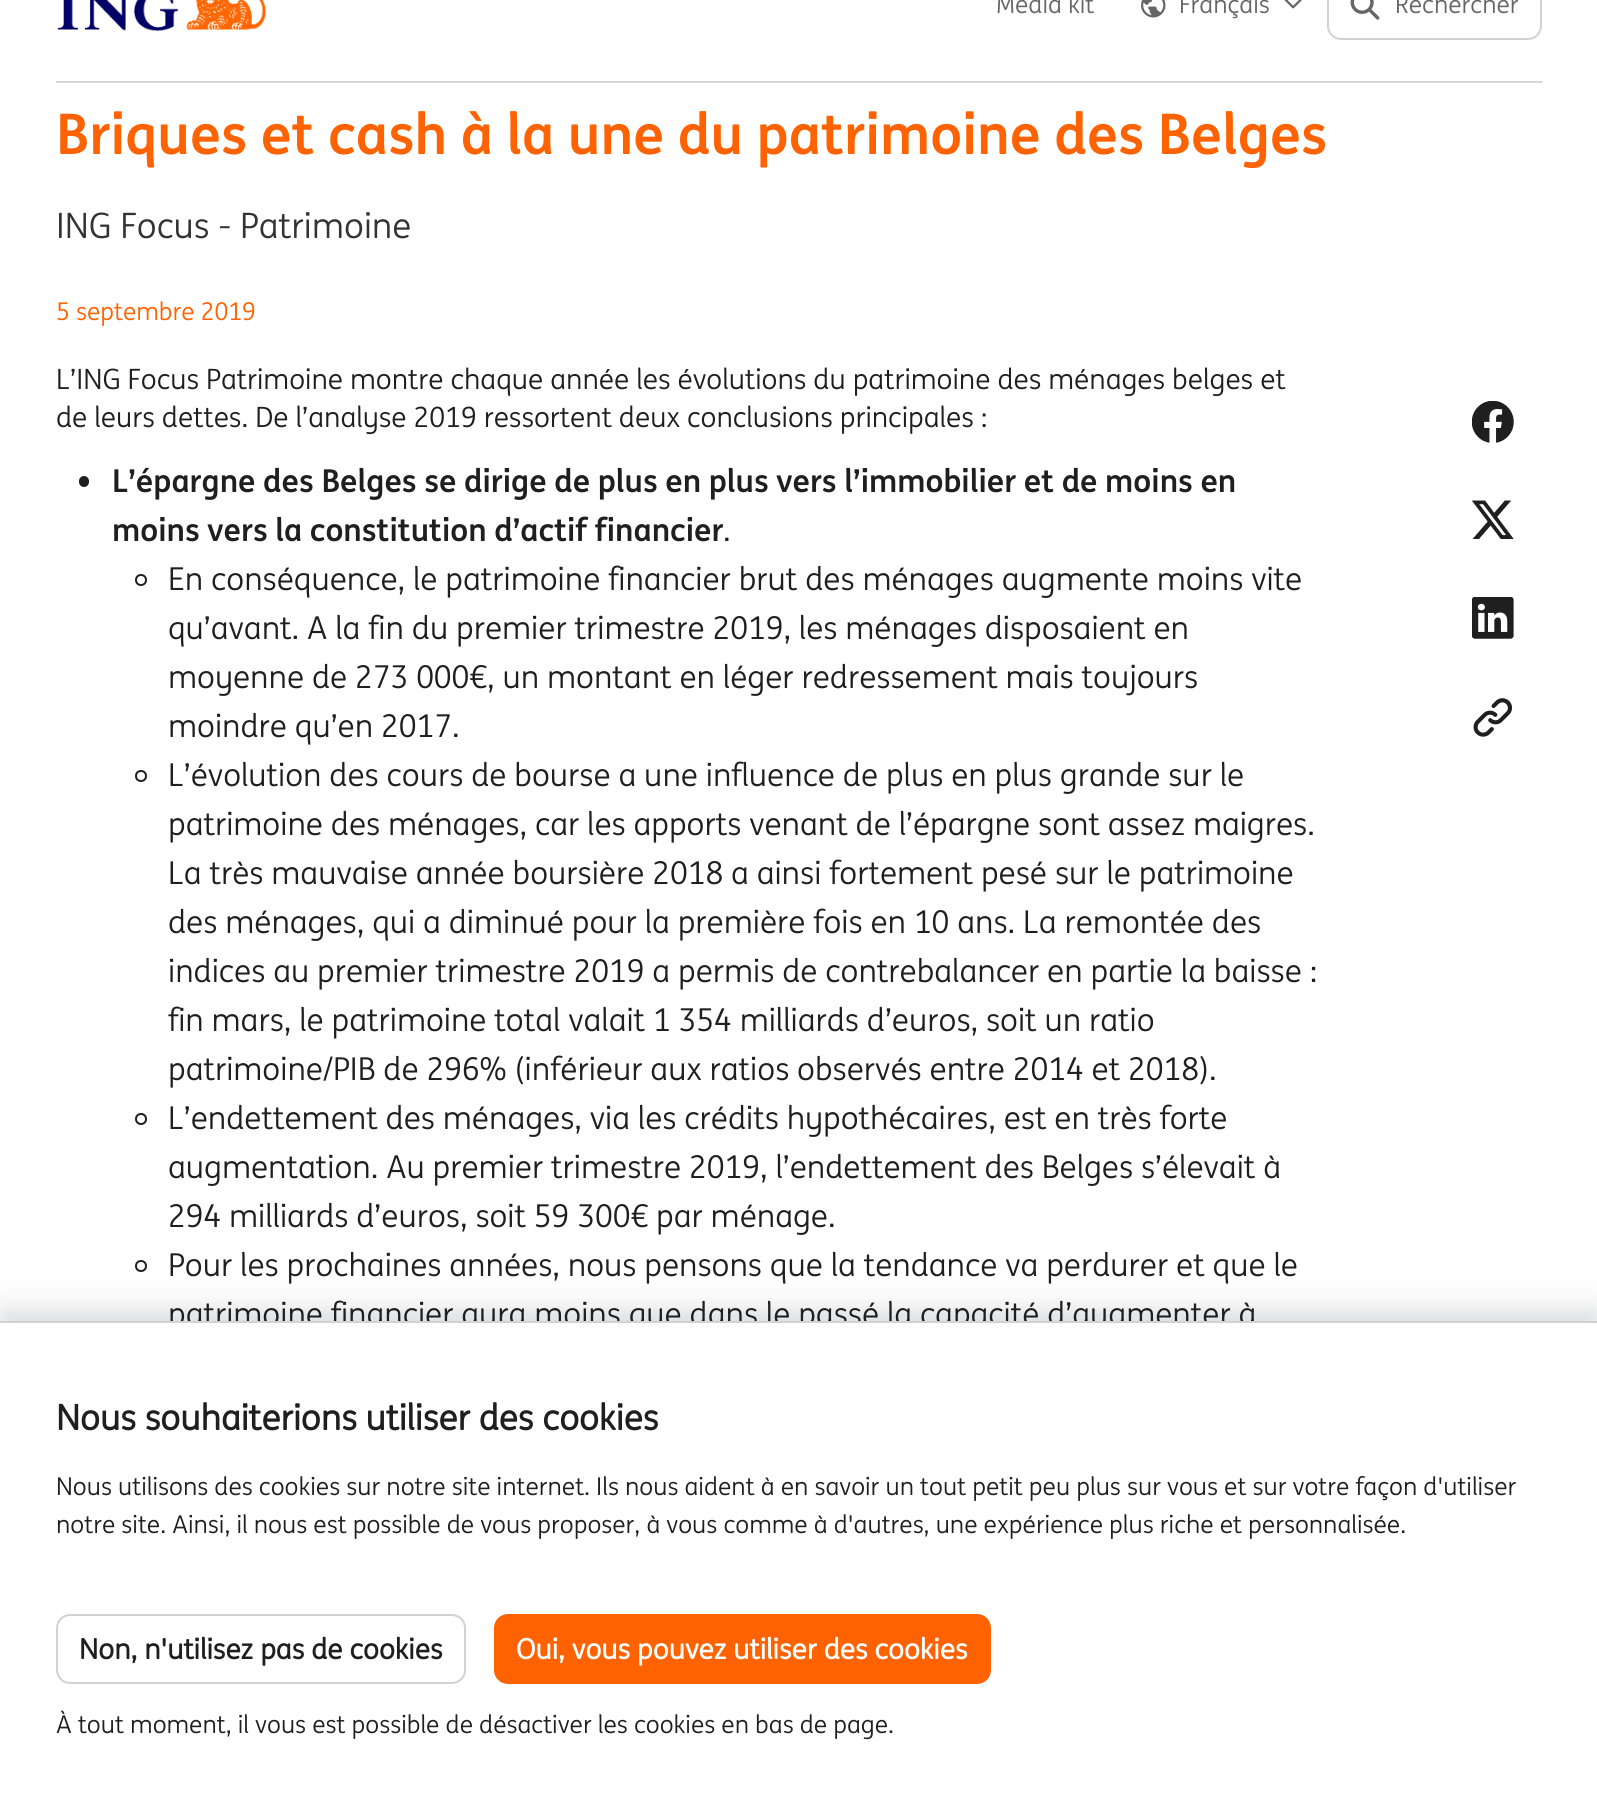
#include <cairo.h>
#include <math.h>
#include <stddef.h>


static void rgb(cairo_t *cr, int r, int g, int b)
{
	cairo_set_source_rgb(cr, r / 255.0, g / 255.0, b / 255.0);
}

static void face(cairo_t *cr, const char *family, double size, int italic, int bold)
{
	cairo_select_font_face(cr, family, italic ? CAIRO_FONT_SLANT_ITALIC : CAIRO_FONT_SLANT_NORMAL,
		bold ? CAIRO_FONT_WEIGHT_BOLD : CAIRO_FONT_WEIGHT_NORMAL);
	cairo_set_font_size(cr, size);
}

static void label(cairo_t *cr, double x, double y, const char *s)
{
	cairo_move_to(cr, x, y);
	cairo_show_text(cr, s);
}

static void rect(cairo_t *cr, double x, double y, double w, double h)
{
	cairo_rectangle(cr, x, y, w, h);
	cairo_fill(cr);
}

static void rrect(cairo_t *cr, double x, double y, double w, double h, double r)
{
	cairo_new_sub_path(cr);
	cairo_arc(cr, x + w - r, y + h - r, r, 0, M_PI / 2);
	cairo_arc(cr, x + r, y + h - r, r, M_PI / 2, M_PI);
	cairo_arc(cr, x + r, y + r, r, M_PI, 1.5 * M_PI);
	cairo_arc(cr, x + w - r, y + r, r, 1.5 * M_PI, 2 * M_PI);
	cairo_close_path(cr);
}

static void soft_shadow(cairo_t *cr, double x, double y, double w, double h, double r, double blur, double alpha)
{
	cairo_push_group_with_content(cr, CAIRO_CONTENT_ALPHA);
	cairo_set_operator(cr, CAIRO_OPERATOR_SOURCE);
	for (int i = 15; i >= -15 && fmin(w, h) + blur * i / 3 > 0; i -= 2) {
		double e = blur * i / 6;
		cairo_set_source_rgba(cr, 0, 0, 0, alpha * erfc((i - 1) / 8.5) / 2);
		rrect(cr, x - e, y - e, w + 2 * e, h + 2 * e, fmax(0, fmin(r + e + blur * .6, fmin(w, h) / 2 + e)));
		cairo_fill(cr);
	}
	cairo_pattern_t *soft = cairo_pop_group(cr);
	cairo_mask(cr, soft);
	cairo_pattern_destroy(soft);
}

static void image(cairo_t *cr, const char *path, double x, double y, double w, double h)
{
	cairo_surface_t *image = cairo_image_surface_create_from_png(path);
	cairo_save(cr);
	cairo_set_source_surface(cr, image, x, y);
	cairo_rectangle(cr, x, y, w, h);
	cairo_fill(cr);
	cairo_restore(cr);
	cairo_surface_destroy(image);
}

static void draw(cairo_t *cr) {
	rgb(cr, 255, 255, 255);
	cairo_paint(cr);
	rgb(cr, 214, 214, 214);
	rect(cr, 56, 81, 1486, 2);
	image(cr, "image0.png", 57, 0, 209, 32);
	face(cr, "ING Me", 24.5, 0, 0);
	rgb(cr, 102, 102, 102);
	label(cr, 996, 13, "Media kit");
	image(cr, "image1.png", 1141, 0, 25, 18);
	label(cr, 1179, 13, "Français");
	image(cr, "image2.png", 1284, 0, 18, 9);
	rrect(cr, 1328, -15, 213, 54, 13);
	rgb(cr, 210, 210, 210);
	cairo_stroke(cr);
	image(cr, "image3.png", 1350, 0, 30, 20);
	rgb(cr, 102, 102, 102);
	label(cr, 1395, 13, "Rechercher");
	face(cr, "ING Me", 56, 0, 1);
	rgb(cr, 255, 98, 0);
	label(cr, 56, 154, "Briques et cash à la une du patrimoine des Belges");
	face(cr, "ING Me", 35, 0, 0);
	rgb(cr, 51, 51, 51);
	label(cr, 56, 238, "ING Focus - Patrimoine");
	face(cr, "ING Me", 24.5, 0, 0);
	rgb(cr, 255, 98, 0);
	label(cr, 56, 320, "5 septembre 2019");
	face(cr, "ING Me", 28, 0, 0);
	rgb(cr, 31, 31, 31);
	label(cr, 56, 389, "L’ING Focus Patrimoine montre chaque année les évolutions du patrimoine des ménages belges et");
	label(cr, 56, 427, "de leurs dettes. De l’analyse 2019 ressortent deux conclusions principales :");
	rrect(cr, 79, 476, 10, 11, 5);
	cairo_fill(cr);
	face(cr, "ING Me", 31.5, 0, 1);
	label(cr, 112, 492, "L’épargne des Belges se dirige de plus en plus vers l’immobilier et de moins en");
	label(cr, 112, 541, "moins vers la constitution d’actif financier");
	face(cr, "ING Me", 31.5, 0, 0);
	label(cr, 723, 541, ".");
	cairo_new_path(cr);
	cairo_arc(cr, 141, 580, 5, 0, 2 * M_PI);
	cairo_stroke(cr);
	label(cr, 168, 590, "En conséquence, le patrimoine financier brut des ménages augmente moins vite");
	label(cr, 168, 639, "qu’avant. A la fin du premier trimestre 2019, les ménages disposaient en");
	label(cr, 168, 688, "moyenne de 273 000€, un montant en léger redressement mais toujours");
	label(cr, 168, 737, "moindre qu’en 2017.");
	cairo_new_path(cr);
	cairo_arc(cr, 141, 776, 5, 0, 2 * M_PI);
	cairo_stroke(cr);
	label(cr, 168, 786, "L’évolution des cours de bourse a une influence de plus en plus grande sur le");
	label(cr, 168, 835, "patrimoine des ménages, car les apports venant de l’épargne sont assez maigres.");
	label(cr, 168, 884, "La très mauvaise année boursière 2018 a ainsi fortement pesé sur le patrimoine");
	label(cr, 168, 933, "des ménages, qui a diminué pour la première fois en 10 ans. La remontée des");
	label(cr, 168, 982, "indices au premier trimestre 2019 a permis de contrebalancer en partie la baisse :");
	label(cr, 168, 1031, "fin mars, le patrimoine total valait 1 354 milliards d’euros, soit un ratio");
	label(cr, 168, 1080, "patrimoine/PIB de 296% (inférieur aux ratios observés entre 2014 et 2018).");
	cairo_new_path(cr);
	cairo_arc(cr, 141, 1119, 5, 0, 2 * M_PI);
	cairo_stroke(cr);
	label(cr, 168, 1129, "L’endettement des ménages, via les crédits hypothécaires, est en très forte");
	label(cr, 168, 1178, "augmentation. Au premier trimestre 2019, l’endettement des Belges s’élevait à");
	label(cr, 168, 1227, "294 milliards d’euros, soit 59 300€ par ménage.");
	cairo_new_path(cr);
	cairo_arc(cr, 141, 1266, 5, 0, 2 * M_PI);
	cairo_stroke(cr);
	label(cr, 168, 1276, "Pour les prochaines années, nous pensons que la tendance va perdurer et que le");
	label(cr, 168, 1325, "patrimoine financier aura moins que dans le passé la capacité d’augmenter à");
	image(cr, "image4.png", 1472, 401, 42, 42);
	image(cr, "image5.png", 1472, 500, 42, 39);
	image(cr, "image6.png", 1472, 597, 42, 42);
	image(cr, "image7.png", 1473, 698, 39, 39);
	rgb(cr, 17, 24, 39);
	soft_shadow(cr, 0, 1314, 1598, 492, 0, 5, 0.05);
	soft_shadow(cr, 0, 1304, 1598, 492, 0, 13, 0.1);
	rgb(cr, 255, 255, 255);
	rect(cr, 0, 1323, 1597, 490);
	rgb(cr, 210, 210, 210);
	rect(cr, 0, 1321, 1597, 2);
	face(cr, "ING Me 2", 35, 0, 1);
	rgb(cr, 31, 31, 31);
	label(cr, 56, 1430, "Nous souhaiterions utiliser des cookies");
	face(cr, "ING Me", 24.5, 0, 0);
	label(cr, 56, 1495, "Nous utilisons des cookies sur notre site internet. Ils nous aident à en savoir un tout petit peu plus sur vous et sur votre façon d'utiliser");
	label(cr, 56, 1533, "notre site. Ainsi, il nous est possible de vous proposer, à vous comme à d'autres, une expérience plus riche et personnalisée.");
	rrect(cr, 57, 1615, 408, 68, 13);
	rgb(cr, 210, 210, 210);
	cairo_stroke(cr);
	face(cr, "ING Me 2", 28, 0, 1);
	rgb(cr, 31, 31, 31);
	label(cr, 79, 1659, "Non, n'utilisez pas de cookies");
	rgb(cr, 255, 98, 0);
	rrect(cr, 495, 1615, 495, 68, 13);
	cairo_fill_preserve(cr);
	cairo_stroke(cr);
	rgb(cr, 255, 255, 255);
	label(cr, 516, 1659, "Oui, vous pouvez utiliser des cookies");
	face(cr, "ING Me", 24.5, 0, 0);
	rgb(cr, 31, 31, 31);
	label(cr, 56, 1733, "À tout moment, il vous est possible de désactiver les cookies en bas de page.");
}

int main(void) {
	cairo_surface_t *surface = cairo_image_surface_create(CAIRO_FORMAT_RGB24, 1597, 1813);
	cairo_t *cr = cairo_create(surface);
	cairo_font_options_t *options = cairo_font_options_create();
	cairo_font_options_set_hint_metrics(options, CAIRO_HINT_METRICS_OFF);
	cairo_font_options_set_hint_style(options, CAIRO_HINT_STYLE_NONE);
	cairo_set_font_options(cr, options);
	cairo_set_miter_limit(cr, 4);
	draw(cr);
	cairo_surface_write_to_png(surface, "render.png");
	cairo_font_options_destroy(options);
	cairo_destroy(cr);
	cairo_surface_destroy(surface);
	return 0;
}
